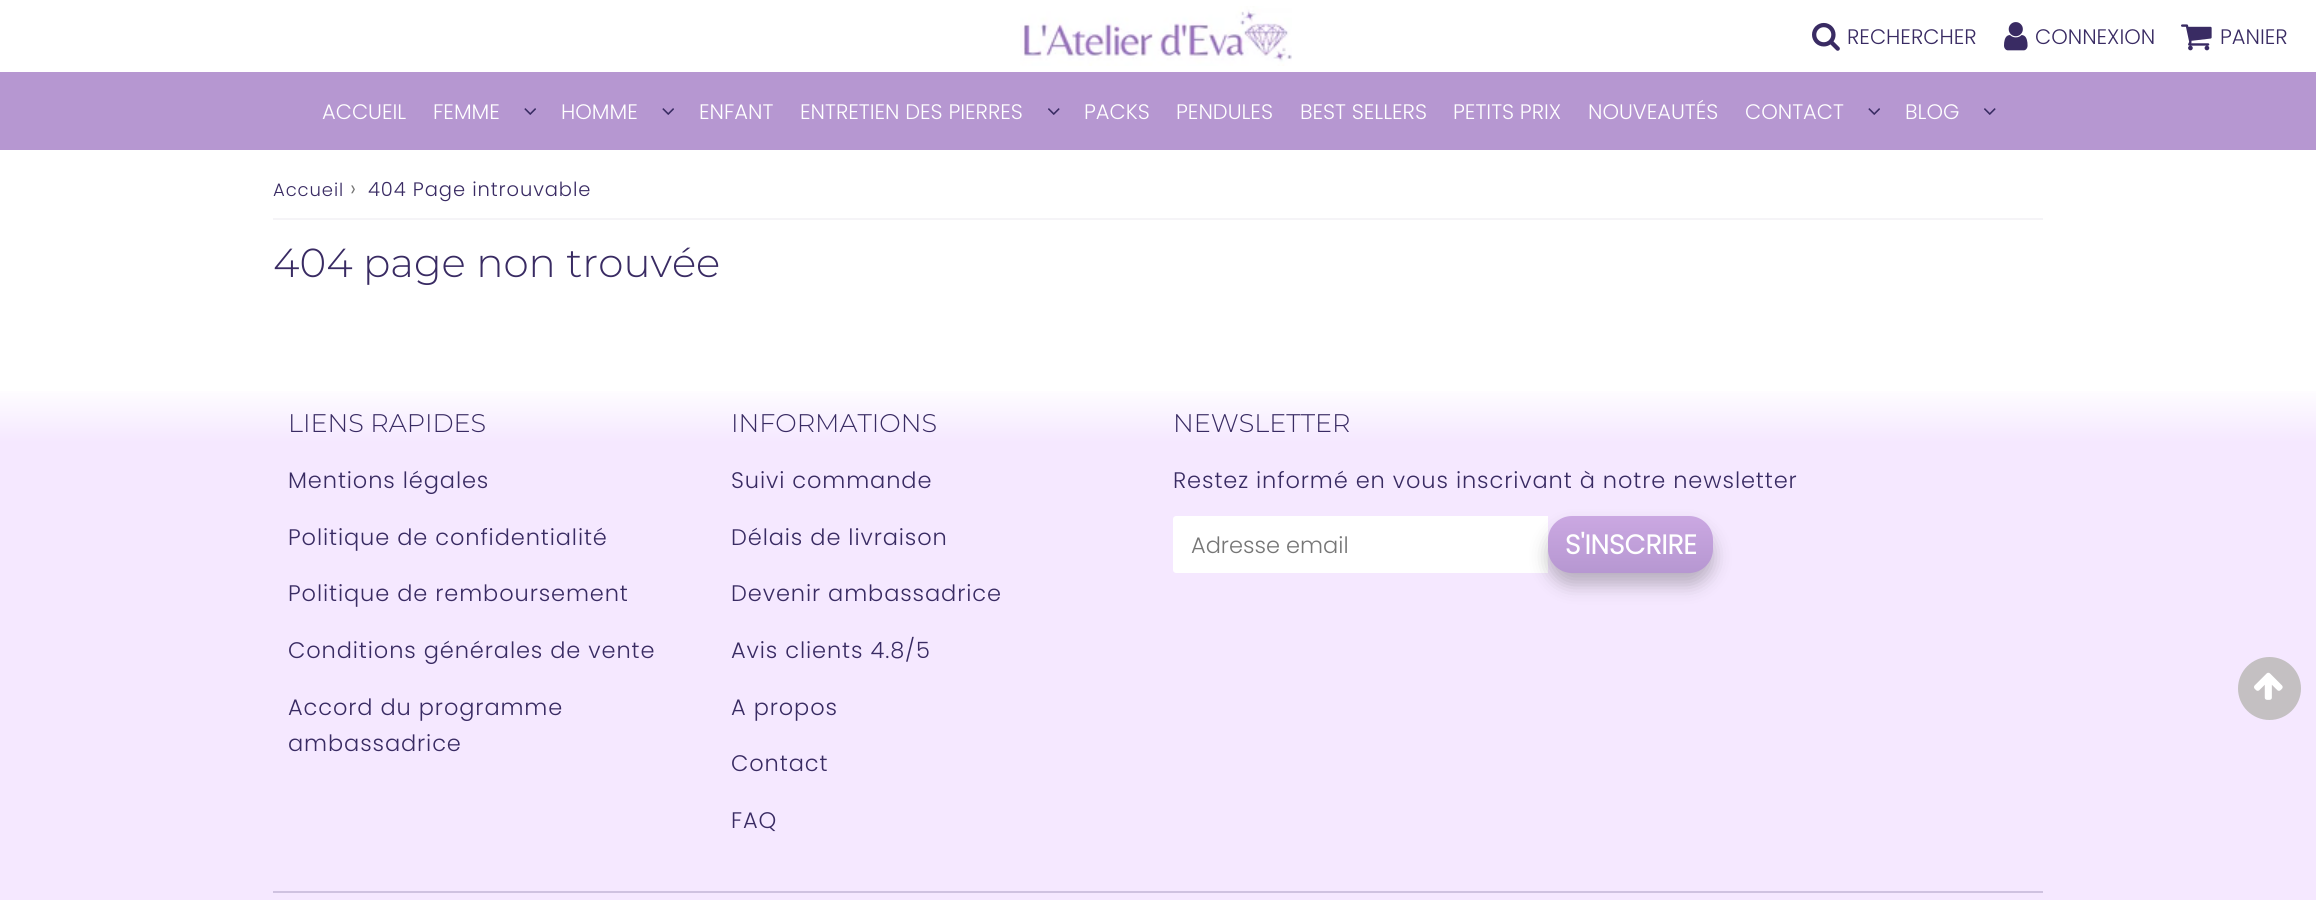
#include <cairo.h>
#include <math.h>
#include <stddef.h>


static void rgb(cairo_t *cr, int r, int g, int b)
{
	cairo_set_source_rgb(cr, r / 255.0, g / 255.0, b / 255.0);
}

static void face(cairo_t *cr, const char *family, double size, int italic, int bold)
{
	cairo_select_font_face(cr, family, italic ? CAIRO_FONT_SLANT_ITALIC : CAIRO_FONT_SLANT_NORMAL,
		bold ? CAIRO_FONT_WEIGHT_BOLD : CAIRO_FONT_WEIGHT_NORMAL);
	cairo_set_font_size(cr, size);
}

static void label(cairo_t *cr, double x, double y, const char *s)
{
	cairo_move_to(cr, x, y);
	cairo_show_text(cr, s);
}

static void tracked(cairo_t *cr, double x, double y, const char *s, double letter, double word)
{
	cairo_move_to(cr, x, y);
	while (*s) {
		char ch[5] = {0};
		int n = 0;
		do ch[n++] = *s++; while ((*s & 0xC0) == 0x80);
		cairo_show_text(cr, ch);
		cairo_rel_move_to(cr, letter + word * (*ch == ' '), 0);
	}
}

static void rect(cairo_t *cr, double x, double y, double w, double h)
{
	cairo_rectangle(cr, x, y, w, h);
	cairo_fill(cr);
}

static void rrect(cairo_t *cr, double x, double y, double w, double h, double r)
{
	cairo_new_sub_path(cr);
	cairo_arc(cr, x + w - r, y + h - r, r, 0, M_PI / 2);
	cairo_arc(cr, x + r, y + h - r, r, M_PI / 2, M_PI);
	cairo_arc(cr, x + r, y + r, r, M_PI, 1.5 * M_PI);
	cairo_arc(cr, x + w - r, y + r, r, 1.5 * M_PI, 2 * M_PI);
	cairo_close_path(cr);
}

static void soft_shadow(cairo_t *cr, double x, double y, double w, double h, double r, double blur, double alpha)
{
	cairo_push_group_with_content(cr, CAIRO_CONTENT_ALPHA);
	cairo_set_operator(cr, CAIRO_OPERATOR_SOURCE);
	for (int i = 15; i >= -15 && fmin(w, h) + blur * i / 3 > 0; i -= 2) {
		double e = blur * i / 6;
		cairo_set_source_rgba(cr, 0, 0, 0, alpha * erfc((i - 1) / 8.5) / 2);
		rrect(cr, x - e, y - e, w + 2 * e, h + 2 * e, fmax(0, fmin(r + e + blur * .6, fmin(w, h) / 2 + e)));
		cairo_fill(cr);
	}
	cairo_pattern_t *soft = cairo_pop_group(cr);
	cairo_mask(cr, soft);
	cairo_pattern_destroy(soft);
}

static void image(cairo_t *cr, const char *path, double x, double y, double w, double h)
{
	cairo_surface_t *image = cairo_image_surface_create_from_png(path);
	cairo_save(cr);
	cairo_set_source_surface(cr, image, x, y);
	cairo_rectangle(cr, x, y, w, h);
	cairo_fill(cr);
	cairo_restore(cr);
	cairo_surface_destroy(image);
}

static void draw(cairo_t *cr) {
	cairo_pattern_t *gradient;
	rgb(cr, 255, 255, 255);
	cairo_paint(cr);
	image(cr, "image0.png", 1020, 6, 272, 60);
	image(cr, "image1.png", 1812, 22, 28, 29);
	face(cr, "Poppins Light", 21, 0, 0);
	rgb(cr, 57, 43, 99);
	label(cr, 1847, 44, "RECHERCHER");
	image(cr, "image2.png", 2004, 22, 24, 29);
	label(cr, 2035, 44, "CONNEXION");
	image(cr, "image3.png", 2181, 24, 31, 27);
	label(cr, 2220, 44, "PANIER");
	rgb(cr, 182, 151, 209);
	rect(cr, 0, 72, 2316, 78);
	rgb(cr, 255, 255, 255);
	label(cr, 322, 119, "ACCUEIL");
	label(cr, 433, 119, "FEMME");
	image(cr, "image4.png", 524, 108, 12, 7);
	label(cr, 561, 119, "HOMME");
	image(cr, "image4.png", 662, 108, 12, 7);
	label(cr, 699, 119, "ENFANT");
	label(cr, 800, 119, "ENTRETIEN DES PIERRES");
	image(cr, "image5.png", 1048, 108, 12, 7);
	label(cr, 1084, 119, "PACKS");
	label(cr, 1176, 119, "PENDULES");
	label(cr, 1300, 119, "BEST SELLERS");
	label(cr, 1453, 119, "PETITS PRIX");
	label(cr, 1588, 119, "NOUVEAUTÉS");
	label(cr, 1745, 119, "CONTACT");
	image(cr, "image4.png", 1868, 108, 12, 7);
	label(cr, 1905, 119, "BLOG");
	image(cr, "image5.png", 1984, 108, 12, 7);
	rgb(cr, 245, 244, 247);
	rect(cr, 273, 218, 1770, 2);
	face(cr, "Poppins Light", 18, 0, 0);
	rgb(cr, 57, 43, 99);
	tracked(cr, 273, 196, "Accueil", 0.9, 0);
	face(cr, "Poppins Light", 22.5, 0, 0);
	rgb(cr, 118, 118, 118);
	tracked(cr, 350, 196, "›", 0.9, 0);
	face(cr, "Poppins Light", 19.5, 0, 0);
	rgb(cr, 57, 43, 99);
	tracked(cr, 368, 196, "404 Page introuvable", 0.9, 0);
	face(cr, "Montserrat Light", 40.5, 0, 0);
	label(cr, 273, 277, "404 page non trouvée");
	gradient = cairo_pattern_create_linear(1158, 363, 1158, 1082);
	cairo_pattern_add_color_stop_rgba(gradient, 0.03, 1, 1, 1, 1);
	cairo_pattern_add_color_stop_rgba(gradient, 0.11, 0.961, 0.91, 1, 1);
	cairo_pattern_add_color_stop_rgba(gradient, 1, 0.961, 0.91, 1, 1);
	cairo_set_source(cr, gradient);
	cairo_pattern_destroy(gradient);
	rect(cr, 0, 391, 2316, 509);
	face(cr, "Montserrat Light", 25.5, 0, 0);
	rgb(cr, 57, 43, 99);
	label(cr, 288, 432, "LIENS RAPIDES");
	face(cr, "Poppins Light", 22.5, 0, 0);
	tracked(cr, 288, 488, "Mentions légales", 0.9, 0);
	tracked(cr, 288, 545, "Politique de confidentialité", 0.9, 0);
	tracked(cr, 288, 601, "Politique de remboursement", 0.9, 0);
	tracked(cr, 288, 658, "Conditions générales de vente", 0.9, 0);
	tracked(cr, 288, 715, "Accord du programme", 0.9, 0);
	tracked(cr, 288, 751, "ambassadrice", 0.9, 0);
	face(cr, "Montserrat Light", 25.5, 0, 0);
	label(cr, 731, 432, "INFORMATIONS");
	face(cr, "Poppins Light", 22.5, 0, 0);
	tracked(cr, 731, 488, "Suivi commande", 0.9, 0);
	tracked(cr, 731, 545, "Délais de livraison", 0.9, 0);
	tracked(cr, 731, 601, "Devenir ambassadrice", 0.9, 0);
	tracked(cr, 731, 658, "Avis clients 4.8/5", 0.9, 0);
	tracked(cr, 731, 715, "A propos", 0.9, 0);
	tracked(cr, 731, 771, "Contact", 0.9, 0);
	tracked(cr, 731, 828, "FAQ", 0.9, 0);
	face(cr, "Montserrat Light", 25.5, 0, 0);
	label(cr, 1173, 432, "NEWSLETTER");
	face(cr, "Poppins Light", 22.5, 0, 0);
	tracked(cr, 1173, 488, "Restez informé en vous inscrivant à notre newsletter", 0.9, 0);
	rgb(cr, 255, 255, 255);
	cairo_new_path(cr);
	cairo_move_to(cr, 1176, 516);
	cairo_line_to(cr, 1548, 516);
	cairo_line_to(cr, 1548, 573);
	cairo_line_to(cr, 1176, 573);
	cairo_curve_to(cr, 1174.5, 573, 1173, 571.5, 1173, 570);
	cairo_line_to(cr, 1173, 519);
	cairo_curve_to(cr, 1173, 517.5, 1174.5, 516, 1176, 516);
	cairo_close_path(cr);
	cairo_fill(cr);
	rgb(cr, 118, 118, 118);
	label(cr, 1191, 553, "Adresse email");
	rgb(cr, 0, 0, 0);
	soft_shadow(cr, 1548, 528, 165, 57, 24, 9, 0.25);
	gradient = cairo_pattern_create_linear(1631, 516, 1631, 573);
	cairo_pattern_add_color_stop_rgba(gradient, 0, 0.796, 0.659, 0.886, 1);
	cairo_pattern_add_color_stop_rgba(gradient, 1, 0.714, 0.592, 0.82, 1);
	cairo_set_source(cr, gradient);
	cairo_pattern_destroy(gradient);
	rrect(cr, 1548, 516, 165, 57, 24);
	cairo_fill(cr);
	face(cr, "Poppins", 27, 0, 1);
	rgb(cr, 255, 255, 255);
	label(cr, 1565, 554, "S'INSCRIRE");
	rgb(cr, 207, 194, 224);
	rect(cr, 273, 891, 1770, 2);
	rgb(cr, 196, 192, 194);
	cairo_new_path(cr);
	cairo_arc(cr, 2269.5, 688.5, 31.5, 0, 2 * M_PI);
	cairo_fill(cr);
	image(cr, "image6.png", 2254, 672, 29, 28);
}

int main(void) {
	cairo_surface_t *surface = cairo_image_surface_create(CAIRO_FORMAT_RGB24, 2316, 900);
	cairo_t *cr = cairo_create(surface);
	cairo_font_options_t *options = cairo_font_options_create();
	cairo_font_options_set_hint_metrics(options, CAIRO_HINT_METRICS_OFF);
	cairo_font_options_set_hint_style(options, CAIRO_HINT_STYLE_NONE);
	cairo_set_font_options(cr, options);
	cairo_set_miter_limit(cr, 4);
	draw(cr);
	cairo_surface_write_to_png(surface, "render.png");
	cairo_font_options_destroy(options);
	cairo_destroy(cr);
	cairo_surface_destroy(surface);
	return 0;
}
